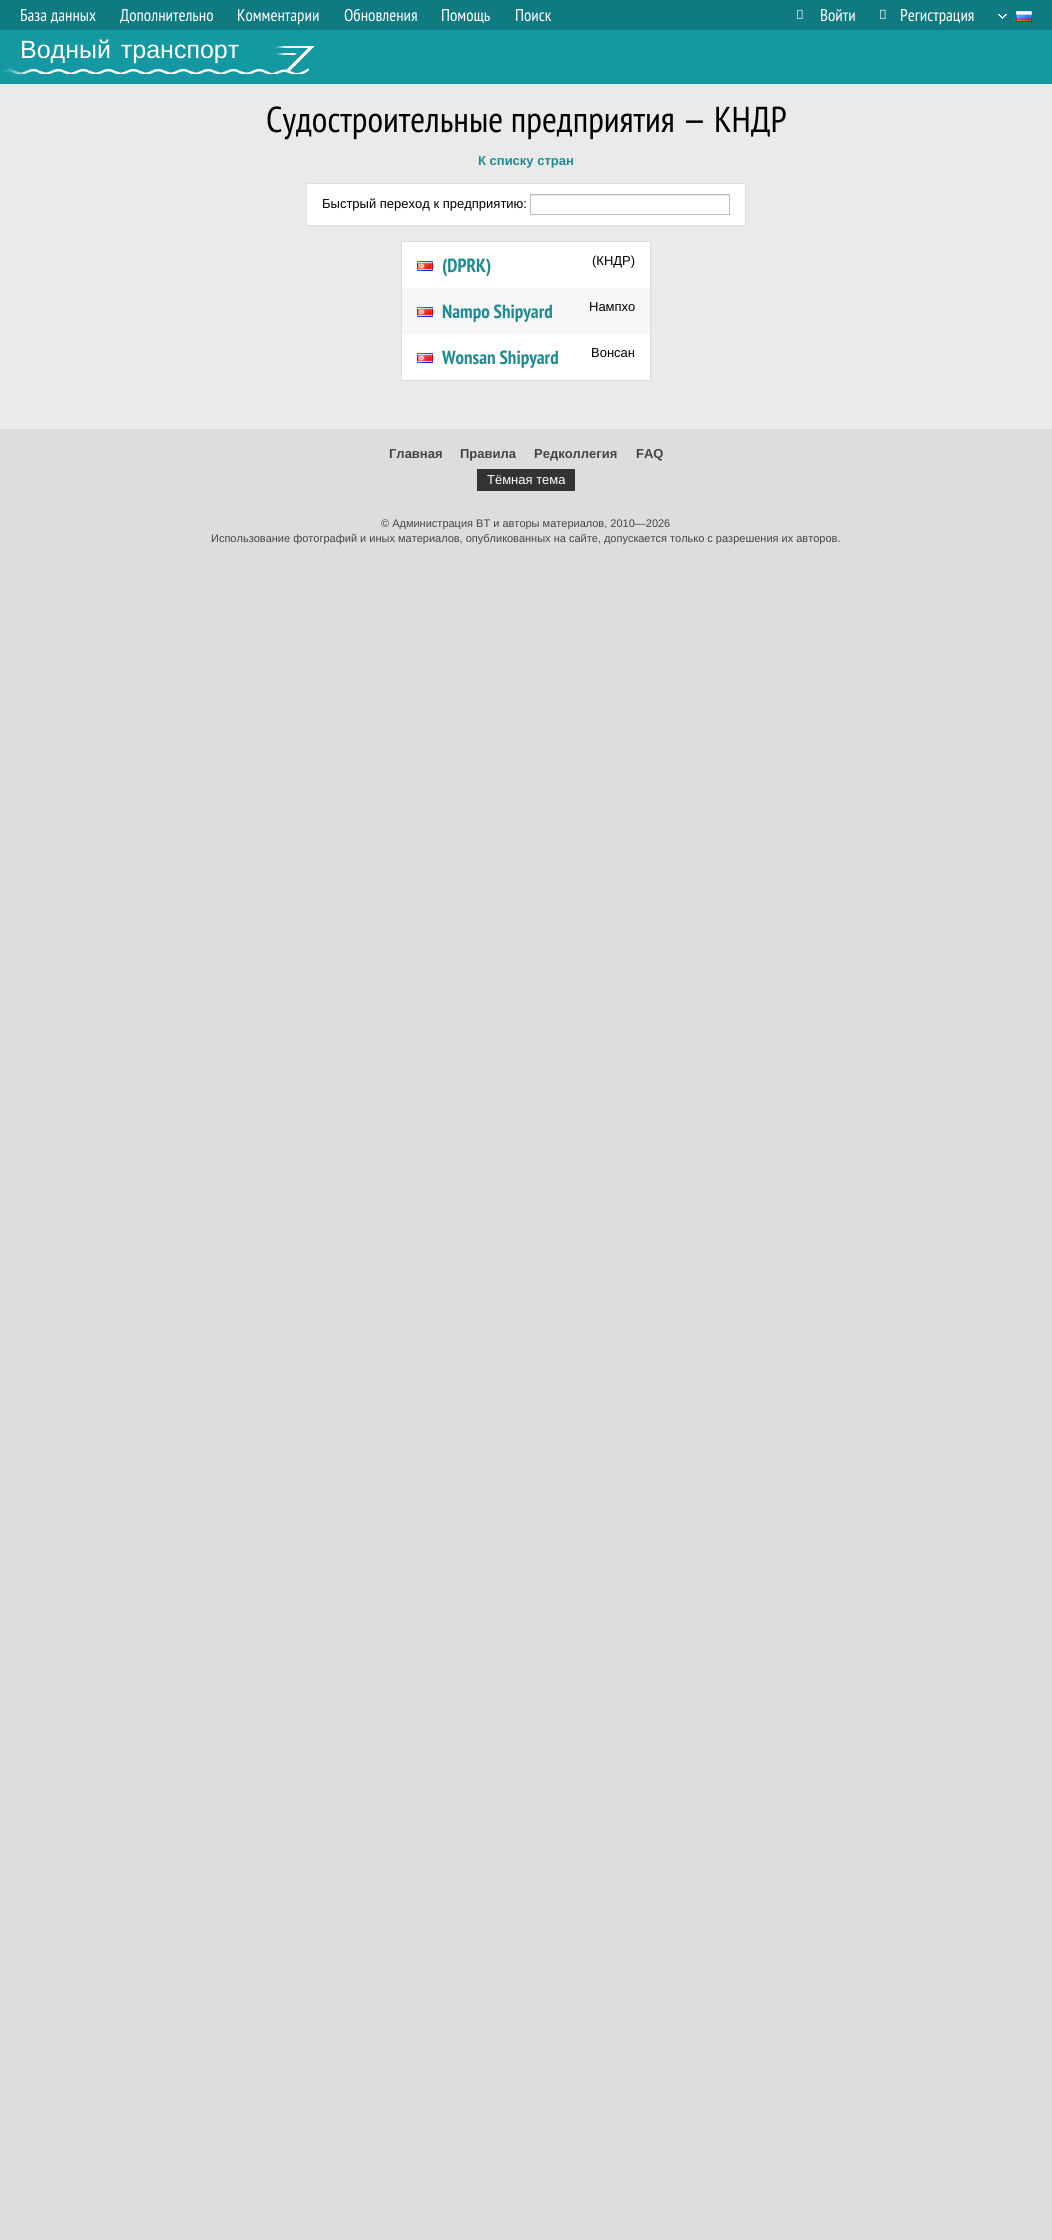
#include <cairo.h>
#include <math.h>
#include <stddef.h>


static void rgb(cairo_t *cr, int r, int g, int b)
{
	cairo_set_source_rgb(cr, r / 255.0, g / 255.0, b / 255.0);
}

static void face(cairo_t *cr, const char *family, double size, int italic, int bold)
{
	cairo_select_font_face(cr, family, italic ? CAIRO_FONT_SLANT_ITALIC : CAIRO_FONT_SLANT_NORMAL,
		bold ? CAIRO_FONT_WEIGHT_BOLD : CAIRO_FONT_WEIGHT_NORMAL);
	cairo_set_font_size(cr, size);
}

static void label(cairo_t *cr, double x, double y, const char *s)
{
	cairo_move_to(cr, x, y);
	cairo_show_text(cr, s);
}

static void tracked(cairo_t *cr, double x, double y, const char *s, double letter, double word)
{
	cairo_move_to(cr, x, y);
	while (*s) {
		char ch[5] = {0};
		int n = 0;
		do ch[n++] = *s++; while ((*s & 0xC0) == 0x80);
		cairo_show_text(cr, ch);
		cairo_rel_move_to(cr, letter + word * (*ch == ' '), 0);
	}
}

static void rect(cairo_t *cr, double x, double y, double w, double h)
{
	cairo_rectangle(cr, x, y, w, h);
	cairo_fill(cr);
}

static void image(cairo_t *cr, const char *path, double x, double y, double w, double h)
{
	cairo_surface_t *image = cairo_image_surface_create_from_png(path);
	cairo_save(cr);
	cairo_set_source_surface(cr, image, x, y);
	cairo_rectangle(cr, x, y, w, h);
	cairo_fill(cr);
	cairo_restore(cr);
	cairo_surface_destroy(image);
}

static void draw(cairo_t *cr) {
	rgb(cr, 221, 221, 221);
	cairo_paint(cr);
	rgb(cr, 16, 122, 129);
	rect(cr, 0, 0, 1052, 30);
	face(cr, "PT Sans Narrow", 17, 0, 0);
	rgb(cr, 255, 255, 255);
	label(cr, 20, 21, "База данных");
	label(cr, 120, 21, "Дополнительно");
	label(cr, 237, 21, "Комментарии");
	label(cr, 344, 21, "Обновления");
	label(cr, 441, 21, "Помощь");
	label(cr, 515, 21, "Поиск");
	image(cr, "image0.png", 797, 9, 6, 10);
	label(cr, 820, 21, "Войти");
	image(cr, "image0.png", 880, 9, 6, 10);
	label(cr, 900, 21, "Регистрация");
	image(cr, "image1.png", 998, 14, 9, 5);
	image(cr, "image2.png", 1016, 11, 16, 11);
	rgb(cr, 20, 152, 161);
	rect(cr, 0, 30, 1052, 54);
	image(cr, "image3.png", 1, 46, 314, 28);
	face(cr, "Liberation Sans", 25, 0, 0);
	rgb(cr, 255, 255, 255);
	tracked(cr, 20, 58, "Водный транспорт", 0, 3);
	rgb(cr, 234, 234, 234);
	rect(cr, 0, 84, 1052, 345);
	face(cr, "PT Sans Narrow", 36, 0, 0);
	rgb(cr, 0, 0, 0);
	label(cr, 266, 132, "Судостроительные предприятия — КНДР");
	face(cr, "Liberation Sans", 13, 0, 1);
	rgb(cr, 30, 139, 146);
	label(cr, 478, 165, "К списку стран");
	rgb(cr, 255, 255, 255);
	cairo_rectangle(cr, 306.5, 183.5, 439, 42);
	cairo_fill_preserve(cr);
	rgb(cr, 221, 221, 221);
	cairo_set_line_width(cr, 1);
	cairo_stroke(cr);
	face(cr, "Liberation Sans", 13, 0, 0);
	rgb(cr, 0, 0, 0);
	label(cr, 322, 208, "Быстрый переход к предприятию:");
	rgb(cr, 230, 230, 230);
	rect(cr, 531, 195, 198, 1);
	cairo_rectangle(cr, 530.5, 194.5, 199, 20);
	rgb(cr, 187, 187, 187);
	cairo_stroke(cr);
	rgb(cr, 255, 255, 255);
	cairo_rectangle(cr, 401.5, 241.5, 249, 139);
	cairo_fill_preserve(cr);
	rgb(cr, 221, 221, 221);
	cairo_stroke(cr);
	image(cr, "image4.png", 417, 261, 16, 10);
	face(cr, "PT Sans Narrow", 19, 0, 1);
	rgb(cr, 30, 139, 146);
	label(cr, 442, 272, "(DPRK)");
	face(cr, "Liberation Sans", 13, 0, 0);
	rgb(cr, 0, 0, 0);
	label(cr, 592, 265, "(КНДР)");
	rgb(cr, 247, 247, 247);
	rect(cr, 402, 288, 248, 46);
	image(cr, "image5.png", 417, 307, 16, 10);
	face(cr, "PT Sans Narrow", 19, 0, 1);
	rgb(cr, 30, 139, 146);
	label(cr, 442, 318, "Nampo Shipyard");
	face(cr, "Liberation Sans", 13, 0, 0);
	rgb(cr, 0, 0, 0);
	label(cr, 589, 311, "Нампхо");
	image(cr, "image5.png", 417, 353, 16, 10);
	face(cr, "PT Sans Narrow", 19, 0, 1);
	rgb(cr, 30, 139, 146);
	label(cr, 442, 364, "Wonsan Shipyard");
	face(cr, "Liberation Sans", 13, 0, 0);
	rgb(cr, 0, 0, 0);
	label(cr, 591, 357, "Вонсан");
	face(cr, "Liberation Sans", 13, 0, 1);
	rgb(cr, 68, 68, 68);
	label(cr, 389, 458, "Главная");
	label(cr, 460, 458, "Правила");
	label(cr, 534, 458, "Редколлегия");
	label(cr, 636, 458, "FAQ");
	rgb(cr, 51, 51, 51);
	rect(cr, 477, 469, 98, 22);
	face(cr, "Liberation Sans", 13, 0, 0);
	rgb(cr, 255, 255, 255);
	label(cr, 487, 484, "Тёмная тема");
	face(cr, "Liberation Sans", 11, 0, 0);
	rgb(cr, 68, 68, 68);
	label(cr, 381, 527, "© Администрация ВТ и авторы материалов, 2010—2026");
	label(cr, 211, 542, "Использование фотографий и иных материалов, опубликованных на сайте, допускается только с разрешения их авторов.");
}

int main(void) {
	cairo_surface_t *surface = cairo_image_surface_create(CAIRO_FORMAT_RGB24, 1052, 2240);
	cairo_t *cr = cairo_create(surface);
	cairo_font_options_t *options = cairo_font_options_create();
	cairo_font_options_set_hint_metrics(options, CAIRO_HINT_METRICS_OFF);
	cairo_font_options_set_hint_style(options, CAIRO_HINT_STYLE_NONE);
	cairo_set_font_options(cr, options);
	cairo_set_miter_limit(cr, 4);
	draw(cr);
	cairo_surface_write_to_png(surface, "render.png");
	cairo_font_options_destroy(options);
	cairo_destroy(cr);
	cairo_surface_destroy(surface);
	return 0;
}
